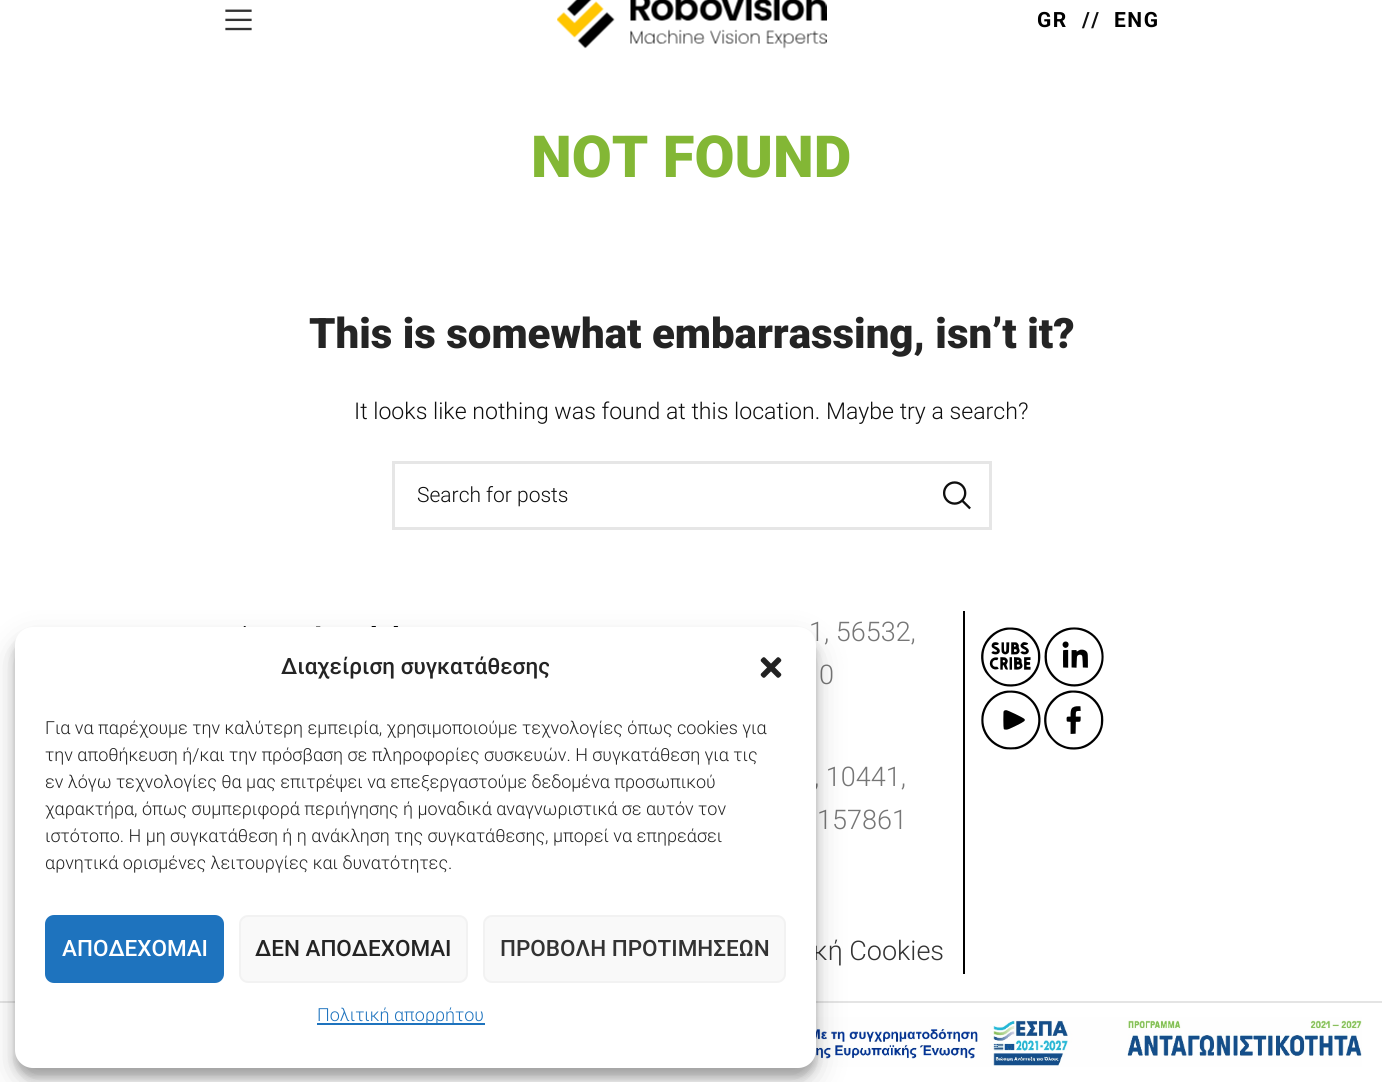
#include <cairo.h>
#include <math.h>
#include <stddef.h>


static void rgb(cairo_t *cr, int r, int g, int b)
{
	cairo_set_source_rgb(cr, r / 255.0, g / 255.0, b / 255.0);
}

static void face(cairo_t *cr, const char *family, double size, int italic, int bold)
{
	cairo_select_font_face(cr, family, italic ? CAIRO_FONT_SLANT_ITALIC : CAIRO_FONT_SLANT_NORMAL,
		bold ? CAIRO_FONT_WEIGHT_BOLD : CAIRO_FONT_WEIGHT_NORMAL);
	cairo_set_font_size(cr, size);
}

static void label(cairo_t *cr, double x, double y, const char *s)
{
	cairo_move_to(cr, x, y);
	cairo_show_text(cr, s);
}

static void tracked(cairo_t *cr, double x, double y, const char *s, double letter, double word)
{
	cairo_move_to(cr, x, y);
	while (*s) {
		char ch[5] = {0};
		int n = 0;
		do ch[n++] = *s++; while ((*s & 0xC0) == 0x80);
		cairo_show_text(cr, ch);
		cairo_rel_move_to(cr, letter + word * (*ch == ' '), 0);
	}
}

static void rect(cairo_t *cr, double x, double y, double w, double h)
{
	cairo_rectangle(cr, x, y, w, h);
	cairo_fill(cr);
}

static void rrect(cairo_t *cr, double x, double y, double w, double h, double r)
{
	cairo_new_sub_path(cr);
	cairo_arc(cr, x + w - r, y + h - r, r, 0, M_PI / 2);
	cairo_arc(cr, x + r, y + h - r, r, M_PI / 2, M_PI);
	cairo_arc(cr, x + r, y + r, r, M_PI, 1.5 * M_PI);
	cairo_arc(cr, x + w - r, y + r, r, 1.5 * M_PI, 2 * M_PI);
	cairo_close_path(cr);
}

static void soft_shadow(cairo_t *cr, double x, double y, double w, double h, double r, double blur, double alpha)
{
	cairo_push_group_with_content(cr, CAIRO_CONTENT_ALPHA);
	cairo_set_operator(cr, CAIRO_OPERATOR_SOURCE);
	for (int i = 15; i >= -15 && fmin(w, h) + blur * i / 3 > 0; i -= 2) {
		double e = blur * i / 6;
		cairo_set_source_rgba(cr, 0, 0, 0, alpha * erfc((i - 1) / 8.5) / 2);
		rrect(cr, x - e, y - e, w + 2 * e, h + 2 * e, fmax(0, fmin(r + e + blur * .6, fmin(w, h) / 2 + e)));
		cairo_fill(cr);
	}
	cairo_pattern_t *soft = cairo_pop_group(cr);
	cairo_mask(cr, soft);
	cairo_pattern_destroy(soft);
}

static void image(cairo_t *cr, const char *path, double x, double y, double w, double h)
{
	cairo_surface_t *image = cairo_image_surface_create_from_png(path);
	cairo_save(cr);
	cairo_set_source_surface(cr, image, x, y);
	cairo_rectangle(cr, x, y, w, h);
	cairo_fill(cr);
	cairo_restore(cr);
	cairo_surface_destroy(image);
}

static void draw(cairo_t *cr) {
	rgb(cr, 255, 255, 255);
	cairo_paint(cr);
	image(cr, "image0.png", 225, 9, 27, 22);
	image(cr, "image1.png", 557, 0, 270, 49);
	face(cr, "Roboto", 21, 0, 1);
	rgb(cr, 0, 0, 0);
	tracked(cr, 1037, 27, "GR", 1.5, 0);
	rgb(cr, 15, 15, 15);
	tracked(cr, 1082, 27, "//", 1.5, 0);
	rgb(cr, 0, 0, 0);
	tracked(cr, 1114, 27, "ENG", 1.5, 0);
	face(cr, "Roboto Black", 58, 0, 0);
	rgb(cr, 131, 183, 53);
	label(cr, 531, 177, "NOT FOUND");
	face(cr, "Roboto Black", 42, 0, 0);
	rgb(cr, 36, 36, 36);
	label(cr, 309, 348, "This is somewhat embarrassing, isn’t it?");
	face(cr, "Roboto Light", 23.1, 0, 0);
	rgb(cr, 15, 15, 15);
	label(cr, 354, 419, "It looks like nothing was found at this location. Maybe try a search?");
	cairo_rectangle(cr, 393.5, 462.5, 597, 66);
	rgb(cr, 230, 230, 230);
	cairo_set_line_width(cr, 3);
	cairo_stroke(cr);
	face(cr, "Roboto Light", 21, 0, 0);
	rgb(cr, 15, 15, 15);
	label(cr, 417, 502, "Search for posts");
	image(cr, "image2.png", 943, 481, 28, 29);
	image(cr, "image3.png", 243, 626, 156, 1);
	face(cr, "Roboto Light", 27, 0, 0);
	rgb(cr, 118, 118, 118);
	label(cr, 809, 641, "1, 56532,");
	label(cr, 819, 684, "0");
	label(cr, 814, 786, ", 10441,");
	label(cr, 817, 829, "157861");
	rgb(cr, 51, 51, 51);
	label(cr, 813, 960, "κή Cookies");
	rgb(cr, 0, 0, 0);
	rect(cr, 963, 611, 2, 363);
	image(cr, "image4.png", 981, 627, 60, 60);
	image(cr, "image5.png", 1044, 627, 60, 60);
	image(cr, "image6.png", 981, 690, 60, 60);
	image(cr, "image7.png", 1044, 690, 60, 60);
	rgb(cr, 228, 228, 228);
	rect(cr, 0, 1001, 1382, 2);
	image(cr, "image9.png", 804, 1017, 558, 50);
	rgb(cr, 0, 0, 0);
	soft_shadow(cr, 15, 636, 801, 441, 18, 4.5, 0.23);
	soft_shadow(cr, 15, 642, 801, 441, 18, 15, 0.19);
	rgb(cr, 255, 255, 255);
	rrect(cr, 15, 627, 801, 441, 18);
	cairo_fill(cr);
	face(cr, "Roboto Medium", 22.5, 0, 0);
	rgb(cr, 36, 36, 36);
	label(cr, 281, 674, "Διαχείριση συγκατάθεσης");
	image(cr, "image8.png", 760, 657, 22, 21);
	face(cr, "Roboto Light", 18, 0, 0);
	label(cr, 45, 734, "Για να παρέχουμε την καλύτερη εμπειρία, χρησιμοποιούμε τεχνολογίες όπως cookies για");
	label(cr, 45, 761, "την αποθήκευση ή/και την πρόσβαση σε πληροφορίες συσκευών. Η συγκατάθεση για τις");
	label(cr, 45, 788, "εν λόγω τεχνολογίες θα μας επιτρέψει να επεξεργαστούμε δεδομένα προσωπικού");
	label(cr, 45, 815, "χαρακτήρα, όπως συμπεριφορά περιήγησης ή μοναδικά αναγνωριστικά σε αυτόν τον");
	label(cr, 45, 842, "ιστότοπο. Η μη συγκατάθεση ή η ανάκληση της συγκατάθεσης, μπορεί να επηρεάσει");
	label(cr, 45, 869, "αρνητικά ορισμένες λειτουργίες και δυνατότητες.");
	rgb(cr, 30, 115, 190);
	rrect(cr, 46, 916, 177, 66, 8);
	cairo_fill_preserve(cr);
	cairo_set_line_width(cr, 2);
	cairo_stroke(cr);
	face(cr, "Roboto Medium", 22.5, 0, 0);
	rgb(cr, 255, 255, 255);
	label(cr, 62, 956, "ΑΠΟΔΕΧΟΜΑΙ");
	rgb(cr, 249, 249, 249);
	rrect(cr, 240, 916, 227, 66, 8);
	cairo_fill_preserve(cr);
	rgb(cr, 242, 242, 242);
	cairo_stroke(cr);
	rgb(cr, 36, 36, 36);
	label(cr, 255, 956, "ΔΕΝ ΑΠΟΔΕΧΟΜΑΙ");
	rgb(cr, 249, 249, 249);
	rrect(cr, 484, 916, 301, 66, 8);
	cairo_fill_preserve(cr);
	rgb(cr, 242, 242, 242);
	cairo_stroke(cr);
	rgb(cr, 51, 51, 51);
	label(cr, 500, 956, "ΠΡΟΒΟΛΗ ΠΡΟΤΙΜΗΣΕΩΝ");
	rgb(cr, 30, 115, 190);
	rect(cr, 317, 1023, 168, 2);
	face(cr, "Roboto Light", 18, 0, 0);
	label(cr, 317, 1021, "Πολιτική απορρήτου");
}

int main(void) {
	cairo_surface_t *surface = cairo_image_surface_create(CAIRO_FORMAT_RGB24, 1382, 1082);
	cairo_t *cr = cairo_create(surface);
	cairo_font_options_t *options = cairo_font_options_create();
	cairo_font_options_set_hint_metrics(options, CAIRO_HINT_METRICS_OFF);
	cairo_font_options_set_hint_style(options, CAIRO_HINT_STYLE_NONE);
	cairo_set_font_options(cr, options);
	cairo_set_miter_limit(cr, 4);
	draw(cr);
	cairo_surface_write_to_png(surface, "render.png");
	cairo_font_options_destroy(options);
	cairo_destroy(cr);
	cairo_surface_destroy(surface);
	return 0;
}
